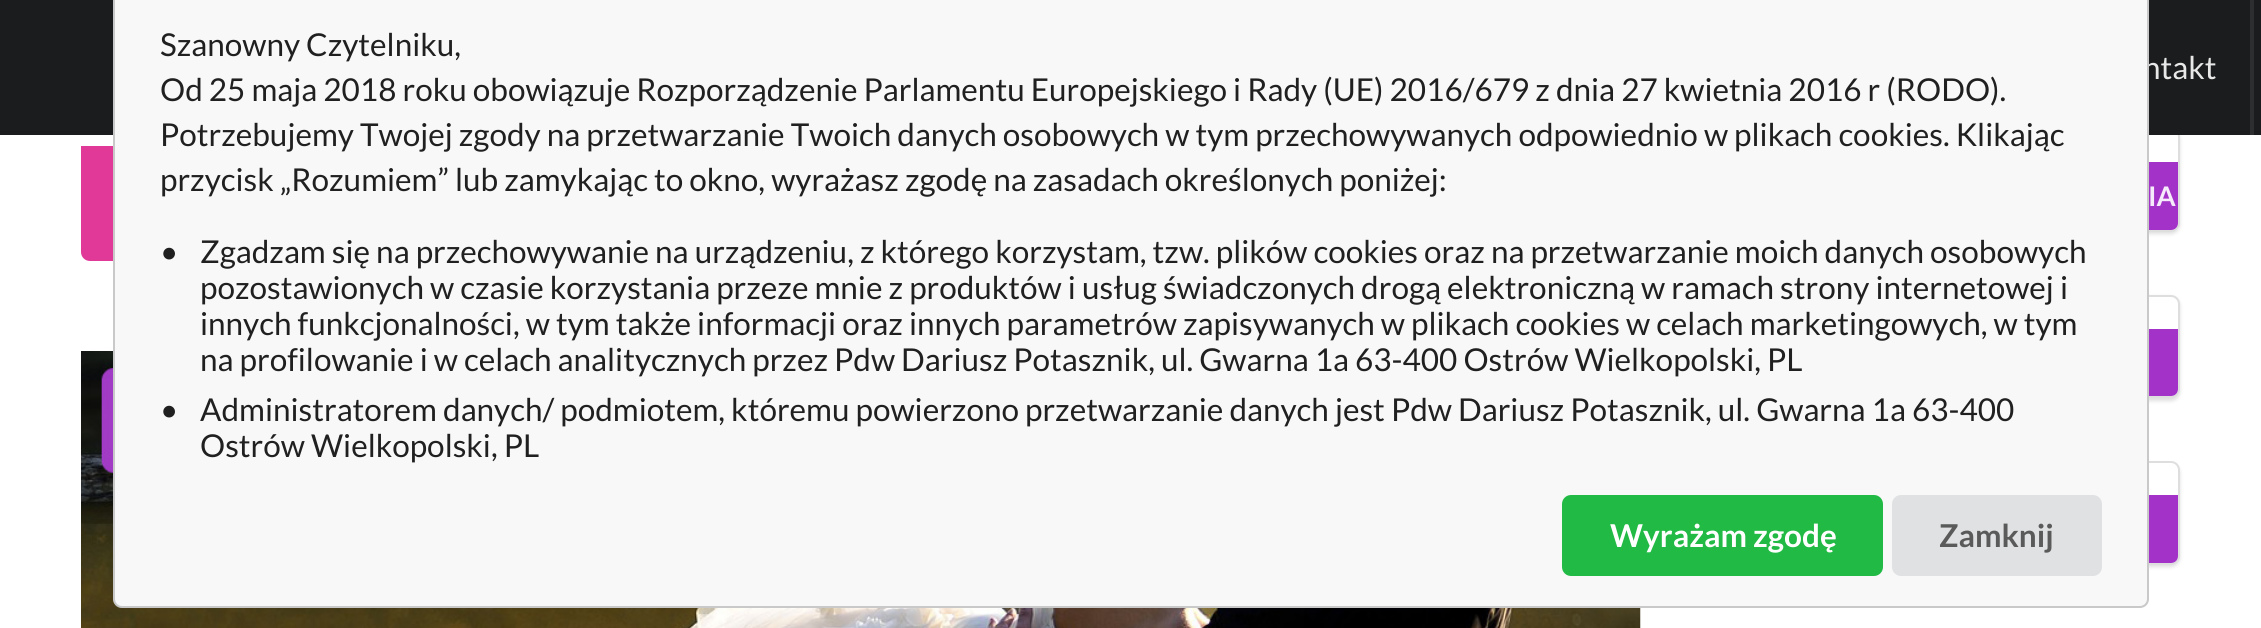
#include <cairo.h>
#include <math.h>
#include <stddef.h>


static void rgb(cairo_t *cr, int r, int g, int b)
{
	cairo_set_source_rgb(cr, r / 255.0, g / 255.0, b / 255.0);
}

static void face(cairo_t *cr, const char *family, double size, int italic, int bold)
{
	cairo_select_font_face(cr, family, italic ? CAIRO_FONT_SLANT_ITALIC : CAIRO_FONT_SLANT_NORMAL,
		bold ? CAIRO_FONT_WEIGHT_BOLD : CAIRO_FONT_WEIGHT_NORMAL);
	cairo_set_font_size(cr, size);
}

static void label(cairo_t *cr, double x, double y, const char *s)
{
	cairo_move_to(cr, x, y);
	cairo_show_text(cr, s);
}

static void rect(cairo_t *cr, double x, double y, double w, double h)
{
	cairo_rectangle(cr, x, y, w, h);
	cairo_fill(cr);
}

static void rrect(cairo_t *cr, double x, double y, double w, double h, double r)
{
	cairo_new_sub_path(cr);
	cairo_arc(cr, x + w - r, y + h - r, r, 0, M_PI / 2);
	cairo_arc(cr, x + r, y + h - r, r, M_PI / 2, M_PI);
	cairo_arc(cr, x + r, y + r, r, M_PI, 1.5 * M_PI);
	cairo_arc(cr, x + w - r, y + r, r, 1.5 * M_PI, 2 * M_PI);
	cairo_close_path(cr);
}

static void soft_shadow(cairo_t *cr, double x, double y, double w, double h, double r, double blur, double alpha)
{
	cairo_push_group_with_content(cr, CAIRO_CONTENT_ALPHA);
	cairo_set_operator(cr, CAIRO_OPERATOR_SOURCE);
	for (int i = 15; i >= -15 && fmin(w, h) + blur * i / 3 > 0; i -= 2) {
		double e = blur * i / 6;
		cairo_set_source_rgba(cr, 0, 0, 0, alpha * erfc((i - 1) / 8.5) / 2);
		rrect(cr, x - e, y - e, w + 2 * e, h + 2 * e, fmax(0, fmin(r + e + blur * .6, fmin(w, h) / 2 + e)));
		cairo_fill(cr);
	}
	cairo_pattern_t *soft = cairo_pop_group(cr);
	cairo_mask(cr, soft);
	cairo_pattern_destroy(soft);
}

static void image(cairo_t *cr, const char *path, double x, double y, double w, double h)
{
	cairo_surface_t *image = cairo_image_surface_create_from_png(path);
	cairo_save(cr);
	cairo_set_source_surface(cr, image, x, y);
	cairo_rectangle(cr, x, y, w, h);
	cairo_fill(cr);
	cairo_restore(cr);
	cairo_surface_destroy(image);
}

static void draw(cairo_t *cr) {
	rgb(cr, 255, 255, 255);
	cairo_paint(cr);
	rgb(cr, 34, 36, 38);
	soft_shadow(cr, 1973, 131, 207, 103, 9, 2, 0.15);
	rgb(cr, 255, 255, 255);
	rrect(cr, 1973, 128, 207, 104, 9);
	cairo_fill(cr);
	rrect(cr, 1974, 129, 205, 102, 8);
	cairo_set_source_rgba(cr, 0.133, 0.141, 0.149, 0.15);
	cairo_stroke(cr);
	rgb(cr, 27, 28, 29);
	rect(cr, 0, 0, 2261, 135);
	face(cr, "Lato", 31.5, 0, 0);
	rgb(cr, 232, 232, 232);
	label(cr, 2143, 79, "ntakt");
	rgb(cr, 224, 57, 151);
	cairo_new_path(cr);
	cairo_move_to(cr, 81, 146);
	cairo_line_to(cr, 1640, 146);
	cairo_line_to(cr, 1640, 252);
	cairo_curve_to(cr, 1640, 257, 1636, 261, 1631, 261);
	cairo_line_to(cr, 90, 261);
	cairo_curve_to(cr, 85, 261, 81, 257, 81, 252);
	cairo_close_path(cr);
	cairo_fill(cr);
	image(cr, "image0.png", 81, 351, 1560, 277);
	rgb(cr, 163, 51, 200);
	cairo_new_path(cr);
	cairo_move_to(cr, 1976, 162);
	cairo_line_to(cr, 2178, 162);
	cairo_line_to(cr, 2178, 223);
	cairo_curve_to(cr, 2178, 227, 2175, 230, 2171, 230);
	cairo_line_to(cr, 1983, 230);
	cairo_curve_to(cr, 1979, 230, 1976, 227, 1976, 223);
	cairo_close_path(cr);
	cairo_fill(cr);
	rgb(cr, 34, 36, 38);
	soft_shadow(cr, 1973, 297, 207, 104, 9, 2, 0.15);
	rgb(cr, 255, 255, 255);
	rrect(cr, 1973, 295, 207, 103, 9);
	cairo_fill(cr);
	rrect(cr, 1974, 296, 205, 101, 8);
	cairo_set_source_rgba(cr, 0.133, 0.141, 0.149, 0.15);
	cairo_stroke(cr);
	rgb(cr, 163, 51, 200);
	cairo_new_path(cr);
	cairo_move_to(cr, 1976, 329);
	cairo_line_to(cr, 2178, 329);
	cairo_line_to(cr, 2178, 389);
	cairo_curve_to(cr, 2178, 393, 2175, 396, 2171, 396);
	cairo_line_to(cr, 1983, 396);
	cairo_curve_to(cr, 1979, 396, 1976, 393, 1976, 389);
	cairo_close_path(cr);
	cairo_fill(cr);
	rgb(cr, 34, 36, 38);
	soft_shadow(cr, 1973, 464, 207, 103, 9, 2, 0.15);
	rgb(cr, 255, 255, 255);
	rrect(cr, 1973, 461, 207, 104, 9);
	cairo_fill(cr);
	rrect(cr, 1974, 462, 205, 102, 8);
	cairo_set_source_rgba(cr, 0.133, 0.141, 0.149, 0.15);
	cairo_stroke(cr);
	rgb(cr, 163, 51, 200);
	cairo_new_path(cr);
	cairo_move_to(cr, 1976, 495);
	cairo_line_to(cr, 2178, 495);
	cairo_line_to(cr, 2178, 556);
	cairo_curve_to(cr, 2178, 560, 2175, 563, 2171, 563);
	cairo_line_to(cr, 1983, 563);
	cairo_curve_to(cr, 1979, 563, 1976, 560, 1976, 556);
	cairo_close_path(cr);
	cairo_fill(cr);
	rgb(cr, 248, 248, 249);
	rrect(cr, 113, -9, 2036, 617, 9);
	cairo_fill(cr);
	rrect(cr, 114, -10, 2034, 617, 8);
	cairo_set_source_rgba(cr, 0.133, 0.141, 0.149, 0.22);
	cairo_stroke(cr);
	rgb(cr, 32, 32, 32);
	label(cr, 160, 56, "Szanowny Czytelniku,");
	label(cr, 160, 101, "Od 25 maja 2018 roku obowiązuje Rozporządzenie Parlamentu Europejskiego i Rady (UE) 2016/679 z dnia 27 kwietnia 2016 r (RODO).");
	label(cr, 160, 146, "Potrzebujemy Twojej zgody na przetwarzanie Twoich danych osobowych w tym przechowywanych odpowiednio w plikach cookies. Klikając");
	label(cr, 160, 191, "przycisk „Rozumiem” lub zamykając to okno, wyrażasz zgodę na zasadach określonych poniżej:");
	label(cr, 160, 263, "•");
	label(cr, 200, 263, "Zgadzam się na przechowywanie na urządzeniu, z którego korzystam, tzw. plików cookies oraz na przetwarzanie moich danych osobowych");
	label(cr, 200, 299, "pozostawionych w czasie korzystania przeze mnie z produktów i usług świadczonych drogą elektroniczną w ramach strony internetowej i");
	label(cr, 200, 335, "innych funkcjonalności, w tym także informacji oraz innych parametrów zapisywanych w plikach cookies w celach marketingowych, w tym");
	label(cr, 200, 371, "na profilowanie i w celach analitycznych przez Pdw Dariusz Potasznik, ul. Gwarna 1a 63-400 Ostrów Wielkopolski, PL");
	label(cr, 160, 421, "•");
	label(cr, 200, 421, "Administratorem danych/ podmiotem, któremu powierzono przetwarzanie danych jest Pdw Dariusz Potasznik, ul. Gwarna 1a 63-400");
	label(cr, 200, 457, "Ostrów Wielkopolski, PL");
	rgb(cr, 33, 186, 69);
	rrect(cr, 1562, 495, 321, 81, 9);
	cairo_fill(cr);
	face(cr, "Lato", 31.5, 0, 1);
	rgb(cr, 255, 255, 255);
	label(cr, 1610, 547, "Wyrażam zgodę");
	rgb(cr, 224, 225, 226);
	rrect(cr, 1892, 495, 210, 81, 9);
	cairo_fill(cr);
	rgb(cr, 90, 90, 90);
	label(cr, 1939, 547, "Zamknij");
	rgb(cr, 45, 46, 47);
	rect(cr, 2250, 0, 4, 135);
	face(cr, "Lato", 27, 0, 1);
	rgb(cr, 246, 235, 250);
	label(cr, 2148, 206, "IA");
}

int main(void) {
	cairo_surface_t *surface = cairo_image_surface_create(CAIRO_FORMAT_RGB24, 2261, 628);
	cairo_t *cr = cairo_create(surface);
	cairo_font_options_t *options = cairo_font_options_create();
	cairo_font_options_set_hint_metrics(options, CAIRO_HINT_METRICS_OFF);
	cairo_font_options_set_hint_style(options, CAIRO_HINT_STYLE_NONE);
	cairo_set_font_options(cr, options);
	cairo_set_miter_limit(cr, 4);
	draw(cr);
	cairo_surface_write_to_png(surface, "render.png");
	cairo_font_options_destroy(options);
	cairo_destroy(cr);
	cairo_surface_destroy(surface);
	return 0;
}
